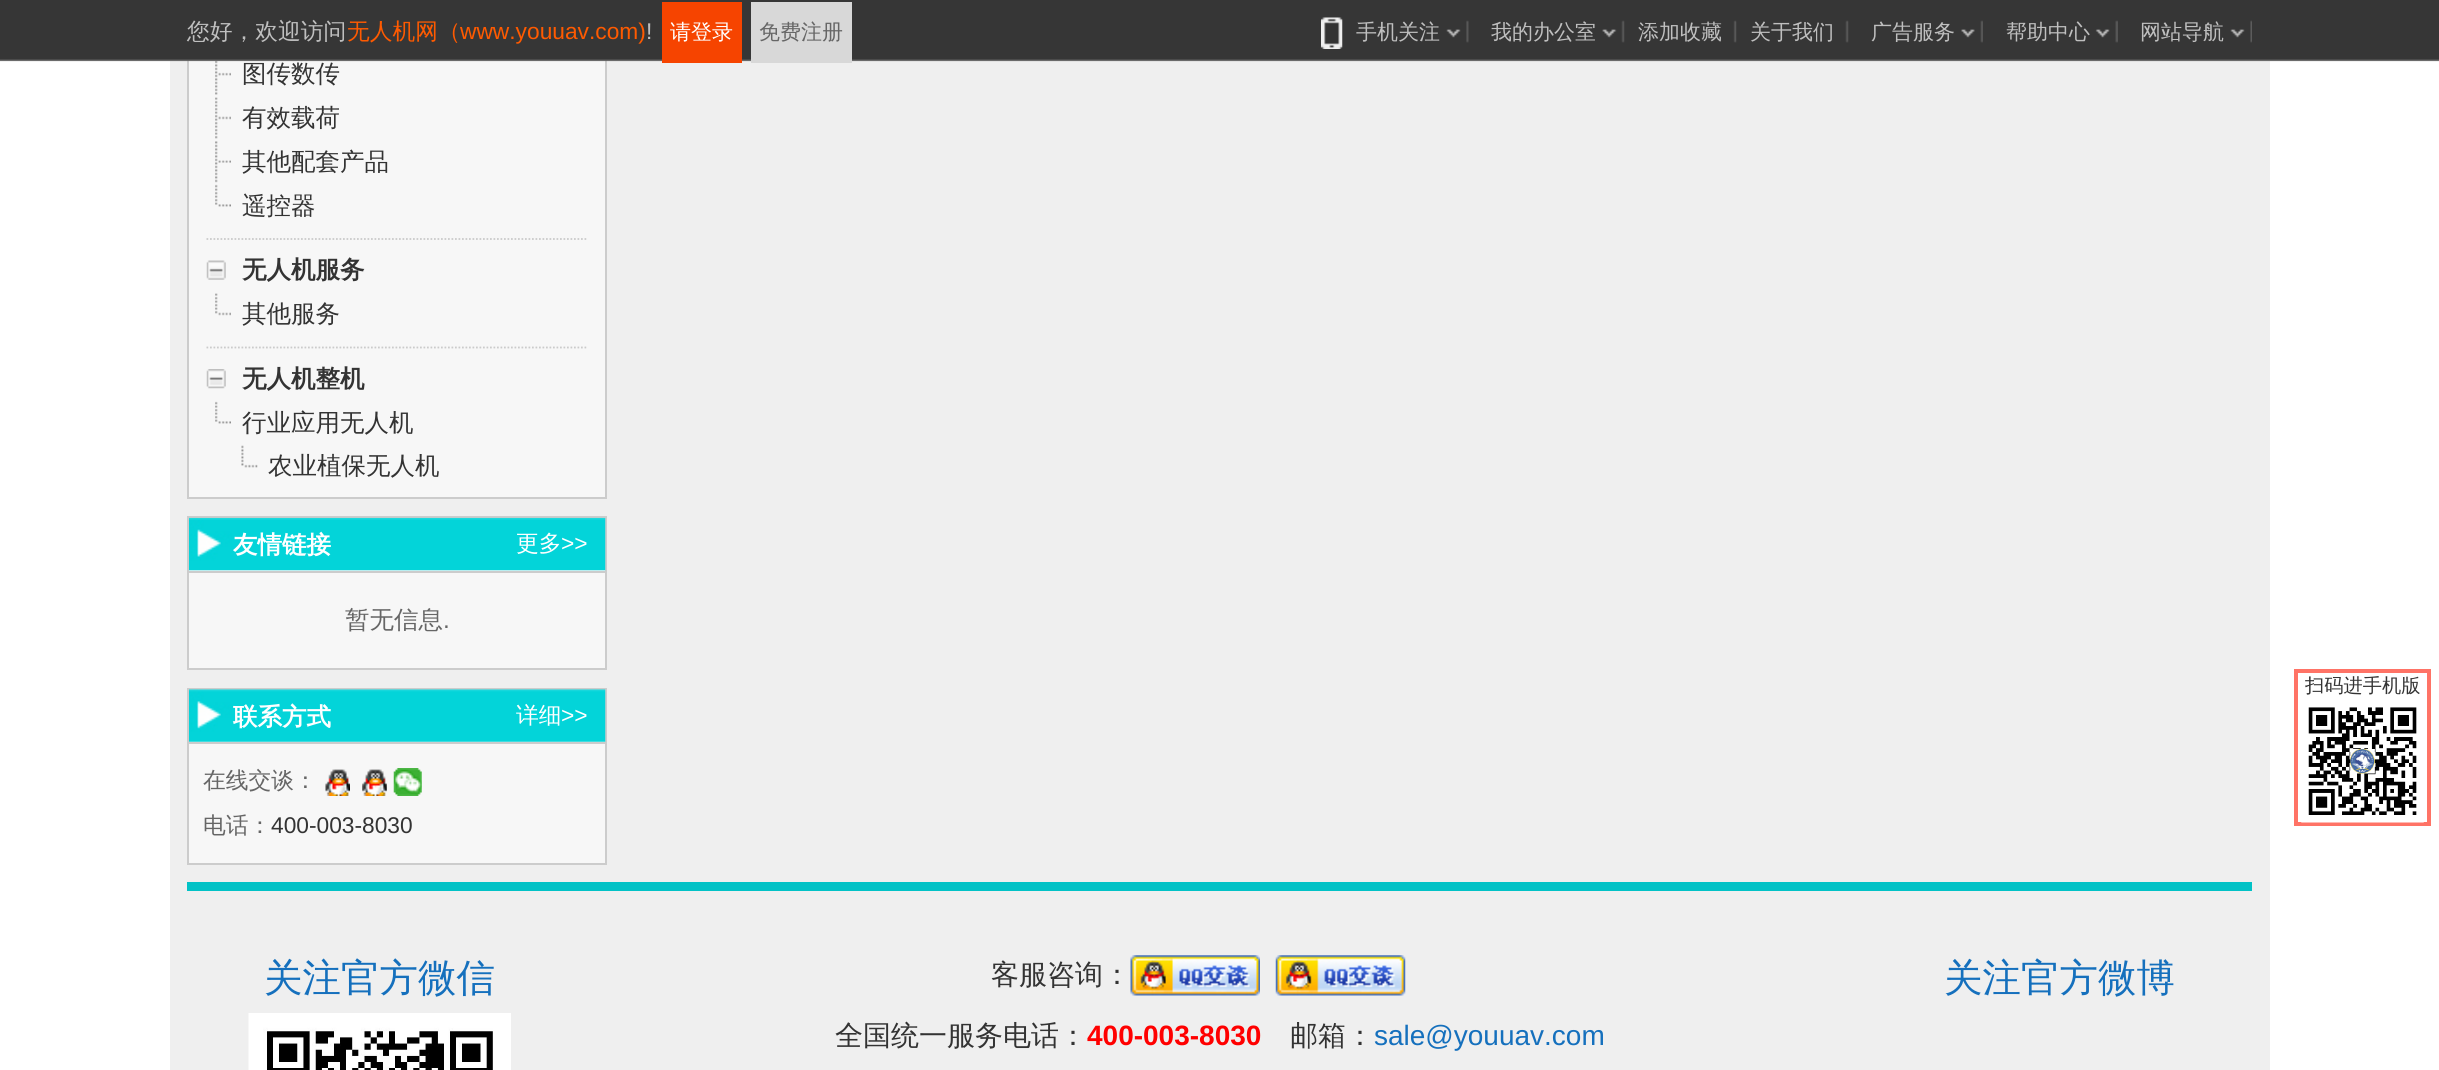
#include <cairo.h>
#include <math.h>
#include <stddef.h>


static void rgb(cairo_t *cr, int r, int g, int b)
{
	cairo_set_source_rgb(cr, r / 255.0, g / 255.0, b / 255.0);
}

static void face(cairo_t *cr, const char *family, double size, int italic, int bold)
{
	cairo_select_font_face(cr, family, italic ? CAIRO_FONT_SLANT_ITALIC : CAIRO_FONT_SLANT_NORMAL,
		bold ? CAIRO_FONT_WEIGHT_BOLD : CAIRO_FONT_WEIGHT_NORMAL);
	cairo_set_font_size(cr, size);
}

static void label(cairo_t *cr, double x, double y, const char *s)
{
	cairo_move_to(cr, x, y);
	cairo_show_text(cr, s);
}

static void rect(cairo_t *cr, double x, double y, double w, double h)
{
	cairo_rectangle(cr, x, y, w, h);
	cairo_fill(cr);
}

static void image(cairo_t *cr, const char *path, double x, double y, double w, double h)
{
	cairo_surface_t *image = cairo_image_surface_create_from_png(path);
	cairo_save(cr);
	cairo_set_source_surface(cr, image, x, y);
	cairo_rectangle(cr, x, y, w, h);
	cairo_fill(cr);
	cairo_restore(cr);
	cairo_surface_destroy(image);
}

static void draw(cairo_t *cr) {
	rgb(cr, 255, 255, 255);
	cairo_paint(cr);
	rgb(cr, 239, 239, 239);
	rect(cr, 170, 60, 2100, 1010);
	rgb(cr, 247, 247, 247);
	rect(cr, 189, 60, 416, 437);
	cairo_rectangle(cr, 188, -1, 418, 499);
	rgb(cr, 204, 204, 204);
	cairo_stroke(cr);
	image(cr, "image13.png", 215, 60, 16, 35);
	image(cr, "image0.png", 0, 0, 2439, 62);
	face(cr, "WenQuanYi Zen Hei Medium", 22.75, 0, 0);
	rgb(cr, 191, 191, 191);
	label(cr, 187, 39, "您好，欢迎访问");
	rgb(cr, 255, 90, 0);
	label(cr, 347, 39, "无人机网（");
	face(cr, "Liberation Sans", 22.75, 0, 0);
	label(cr, 460, 39, "www.youuav.com)");
	rgb(cr, 191, 191, 191);
	label(cr, 646, 39, "!");
	rgb(cr, 246, 68, 0);
	rect(cr, 662, 2, 80, 61);
	face(cr, "WenQuanYi Zen Hei Medium", 21, 0, 0);
	rgb(cr, 255, 255, 255);
	label(cr, 670, 39, "请登录");
	rgb(cr, 216, 216, 216);
	rect(cr, 751, 2, 101, 61);
	rgb(cr, 102, 102, 102);
	label(cr, 759, 39, "免费注册");
	image(cr, "image1.png", 1466, 20, 3, 23);
	image(cr, "image2.png", 1446, 29, 15, 9);
	image(cr, "image3.png", 1321, 17, 22, 32);
	rgb(cr, 191, 191, 191);
	label(cr, 1356, 39, "手机关注");
	image(cr, "image4.png", 1621, 20, 4, 23);
	image(cr, "image5.png", 1602, 29, 15, 9);
	label(cr, 1491, 39, "我的办公室");
	image(cr, "image6.png", 1733, 20, 4, 23);
	label(cr, 1638, 39, "添加收藏");
	image(cr, "image4.png", 1845, 20, 4, 23);
	label(cr, 1750, 39, "关于我们");
	image(cr, "image7.png", 1980, 20, 3, 23);
	image(cr, "image8.png", 1961, 29, 14, 9);
	label(cr, 1871, 39, "广告服务");
	image(cr, "image9.png", 2115, 20, 3, 23);
	image(cr, "image10.png", 2095, 29, 15, 9);
	label(cr, 2006, 39, "帮助中心");
	image(cr, "image11.png", 2250, 20, 2, 23);
	image(cr, "image12.png", 2230, 29, 15, 9);
	label(cr, 2140, 39, "网站导航");
	face(cr, "WenQuanYi Zen Hei Medium", 24.5, 0, 0);
	rgb(cr, 51, 51, 51);
	label(cr, 242, 82, "图传数传");
	image(cr, "image14.png", 215, 97, 16, 42);
	label(cr, 242, 126, "有效载荷");
	image(cr, "image15.png", 215, 141, 16, 42);
	label(cr, 242, 170, "其他配套产品");
	image(cr, "image16.png", 215, 184, 16, 23);
	label(cr, 242, 214, "遥控器");
	cairo_new_path(cr);
	cairo_move_to(cr, 206.5, 239);
	cairo_line_to(cr, 588, 239);
	rgb(cr, 203, 203, 203);
	cairo_set_line_width(cr, 1.8);
	cairo_set_dash(cr, (double[]){1.75, 1.75}, 2, 0);
	cairo_stroke(cr);
	image(cr, "image17.png", 206, 260, 20, 20);
	face(cr, "WenQuanYi Zen Hei", 24.5, 0, 1);
	rgb(cr, 51, 51, 51);
	label(cr, 242, 278, "无人机服务");
	image(cr, "image18.png", 215, 293, 16, 23);
	face(cr, "WenQuanYi Zen Hei Medium", 24.5, 0, 0);
	label(cr, 242, 322, "其他服务");
	cairo_new_path(cr);
	cairo_move_to(cr, 206.5, 347.5);
	cairo_line_to(cr, 588, 347.5);
	rgb(cr, 203, 203, 203);
	cairo_stroke(cr);
	image(cr, "image19.png", 206, 369, 20, 20);
	face(cr, "WenQuanYi Zen Hei", 24.5, 0, 1);
	rgb(cr, 51, 51, 51);
	label(cr, 242, 387, "无人机整机");
	image(cr, "image16.png", 215, 401, 16, 23);
	face(cr, "WenQuanYi Zen Hei Medium", 24.5, 0, 0);
	label(cr, 242, 431, "行业应用无人机");
	image(cr, "image20.png", 241, 445, 17, 23);
	label(cr, 268, 474, "农业植保无人机");
	rgb(cr, 247, 247, 247);
	rect(cr, 189, 570, 416, 98);
	cairo_rectangle(cr, 188, 517, 418, 152);
	rgb(cr, 204, 204, 204);
	cairo_set_line_width(cr, 2);
	cairo_set_dash(cr, NULL, 0, 0);
	cairo_stroke(cr);
	image(cr, "image21.png", 189, 517, 417, 54);
	rect(cr, 189, 571, 417, 2);
	face(cr, "WenQuanYi Zen Hei", 24.5, 0, 1);
	rgb(cr, 255, 255, 255);
	label(cr, 233, 553, "友情链接");
	face(cr, "WenQuanYi Zen Hei Medium", 22.75, 0, 0);
	label(cr, 516, 551, "更多");
	face(cr, "Liberation Sans", 22.75, 0, 0);
	label(cr, 561, 551, ">>");
	face(cr, "WenQuanYi Zen Hei Medium", 24.5, 0, 0);
	rgb(cr, 102, 102, 102);
	label(cr, 345, 628, "暂无信息");
	face(cr, "Liberation Sans", 24.5, 0, 0);
	label(cr, 443, 628, ".");
	rgb(cr, 247, 247, 247);
	rect(cr, 189, 741, 416, 122);
	cairo_rectangle(cr, 188, 689, 418, 175);
	rgb(cr, 204, 204, 204);
	cairo_stroke(cr);
	image(cr, "image22.png", 189, 689, 417, 53);
	rect(cr, 189, 742, 417, 2);
	face(cr, "WenQuanYi Zen Hei", 24.5, 0, 1);
	rgb(cr, 255, 255, 255);
	label(cr, 233, 725, "联系方式");
	face(cr, "WenQuanYi Zen Hei Medium", 22.75, 0, 0);
	label(cr, 516, 723, "详细");
	face(cr, "Liberation Sans", 22.75, 0, 0);
	label(cr, 561, 723, ">>");
	face(cr, "WenQuanYi Zen Hei Medium", 22.75, 0, 0);
	rgb(cr, 102, 102, 102);
	label(cr, 203, 788, "在线交谈：");
	image(cr, "image23.png", 325, 769, 25, 27);
	image(cr, "image24.png", 362, 769, 25, 27);
	image(cr, "image25.png", 393, 768, 29, 28);
	label(cr, 203, 833, "电话：");
	face(cr, "Liberation Sans", 22.75, 0, 0);
	rgb(cr, 51, 51, 51);
	label(cr, 271, 833, "400-003-8030");
	cairo_rectangle(cr, 2296, 671, 133, 153);
	rgb(cr, 255, 115, 102);
	cairo_set_line_width(cr, 4);
	cairo_stroke(cr);
	face(cr, "WenQuanYi Zen Hei Medium", 19.25, 0, 0);
	rgb(cr, 51, 51, 51);
	label(cr, 2305, 692, "扫码进手机版");
	image(cr, "image26.png", 2301, 707, 123, 116);
	rgb(cr, 2, 194, 198);
	rect(cr, 187, 882, 2065, 9);
	face(cr, "WenQuanYi Zen Hei Medium", 38.5, 0, 0);
	rgb(cr, 21, 112, 189);
	label(cr, 264, 991, "关注官方微信");
	image(cr, "image27.png", 248, 1013, 263, 57);
	face(cr, "WenQuanYi Zen Hei Medium", 28, 0, 0);
	rgb(cr, 51, 51, 51);
	label(cr, 991, 984, "客服咨询：");
	image(cr, "image28.png", 1130, 955, 130, 41);
	image(cr, "image29.png", 1275, 955, 131, 41);
	face(cr, "WenQuanYi Zen Hei Medium", 38.5, 0, 0);
	rgb(cr, 21, 112, 189);
	label(cr, 1944, 991, "关注官方微博");
	face(cr, "WenQuanYi Zen Hei Medium", 28, 0, 0);
	rgb(cr, 51, 51, 51);
	label(cr, 835, 1045, "全国统一服务电话：");
	face(cr, "Liberation Sans", 28, 0, 1);
	rgb(cr, 255, 0, 0);
	label(cr, 1087, 1045, "400-003-8030");
	face(cr, "WenQuanYi Zen Hei Medium", 28, 0, 0);
	rgb(cr, 51, 51, 51);
	label(cr, 1290, 1045, "邮箱：");
	face(cr, "Liberation Sans", 28, 0, 0);
	rgb(cr, 21, 112, 189);
	label(cr, 1374, 1045, "sale@youuav.com");
}

int main(void) {
	cairo_surface_t *surface = cairo_image_surface_create(CAIRO_FORMAT_RGB24, 2439, 1070);
	cairo_t *cr = cairo_create(surface);
	cairo_font_options_t *options = cairo_font_options_create();
	cairo_font_options_set_hint_metrics(options, CAIRO_HINT_METRICS_OFF);
	cairo_font_options_set_hint_style(options, CAIRO_HINT_STYLE_NONE);
	cairo_set_font_options(cr, options);
	cairo_set_miter_limit(cr, 4);
	draw(cr);
	cairo_surface_write_to_png(surface, "render.png");
	cairo_font_options_destroy(options);
	cairo_destroy(cr);
	cairo_surface_destroy(surface);
	return 0;
}
